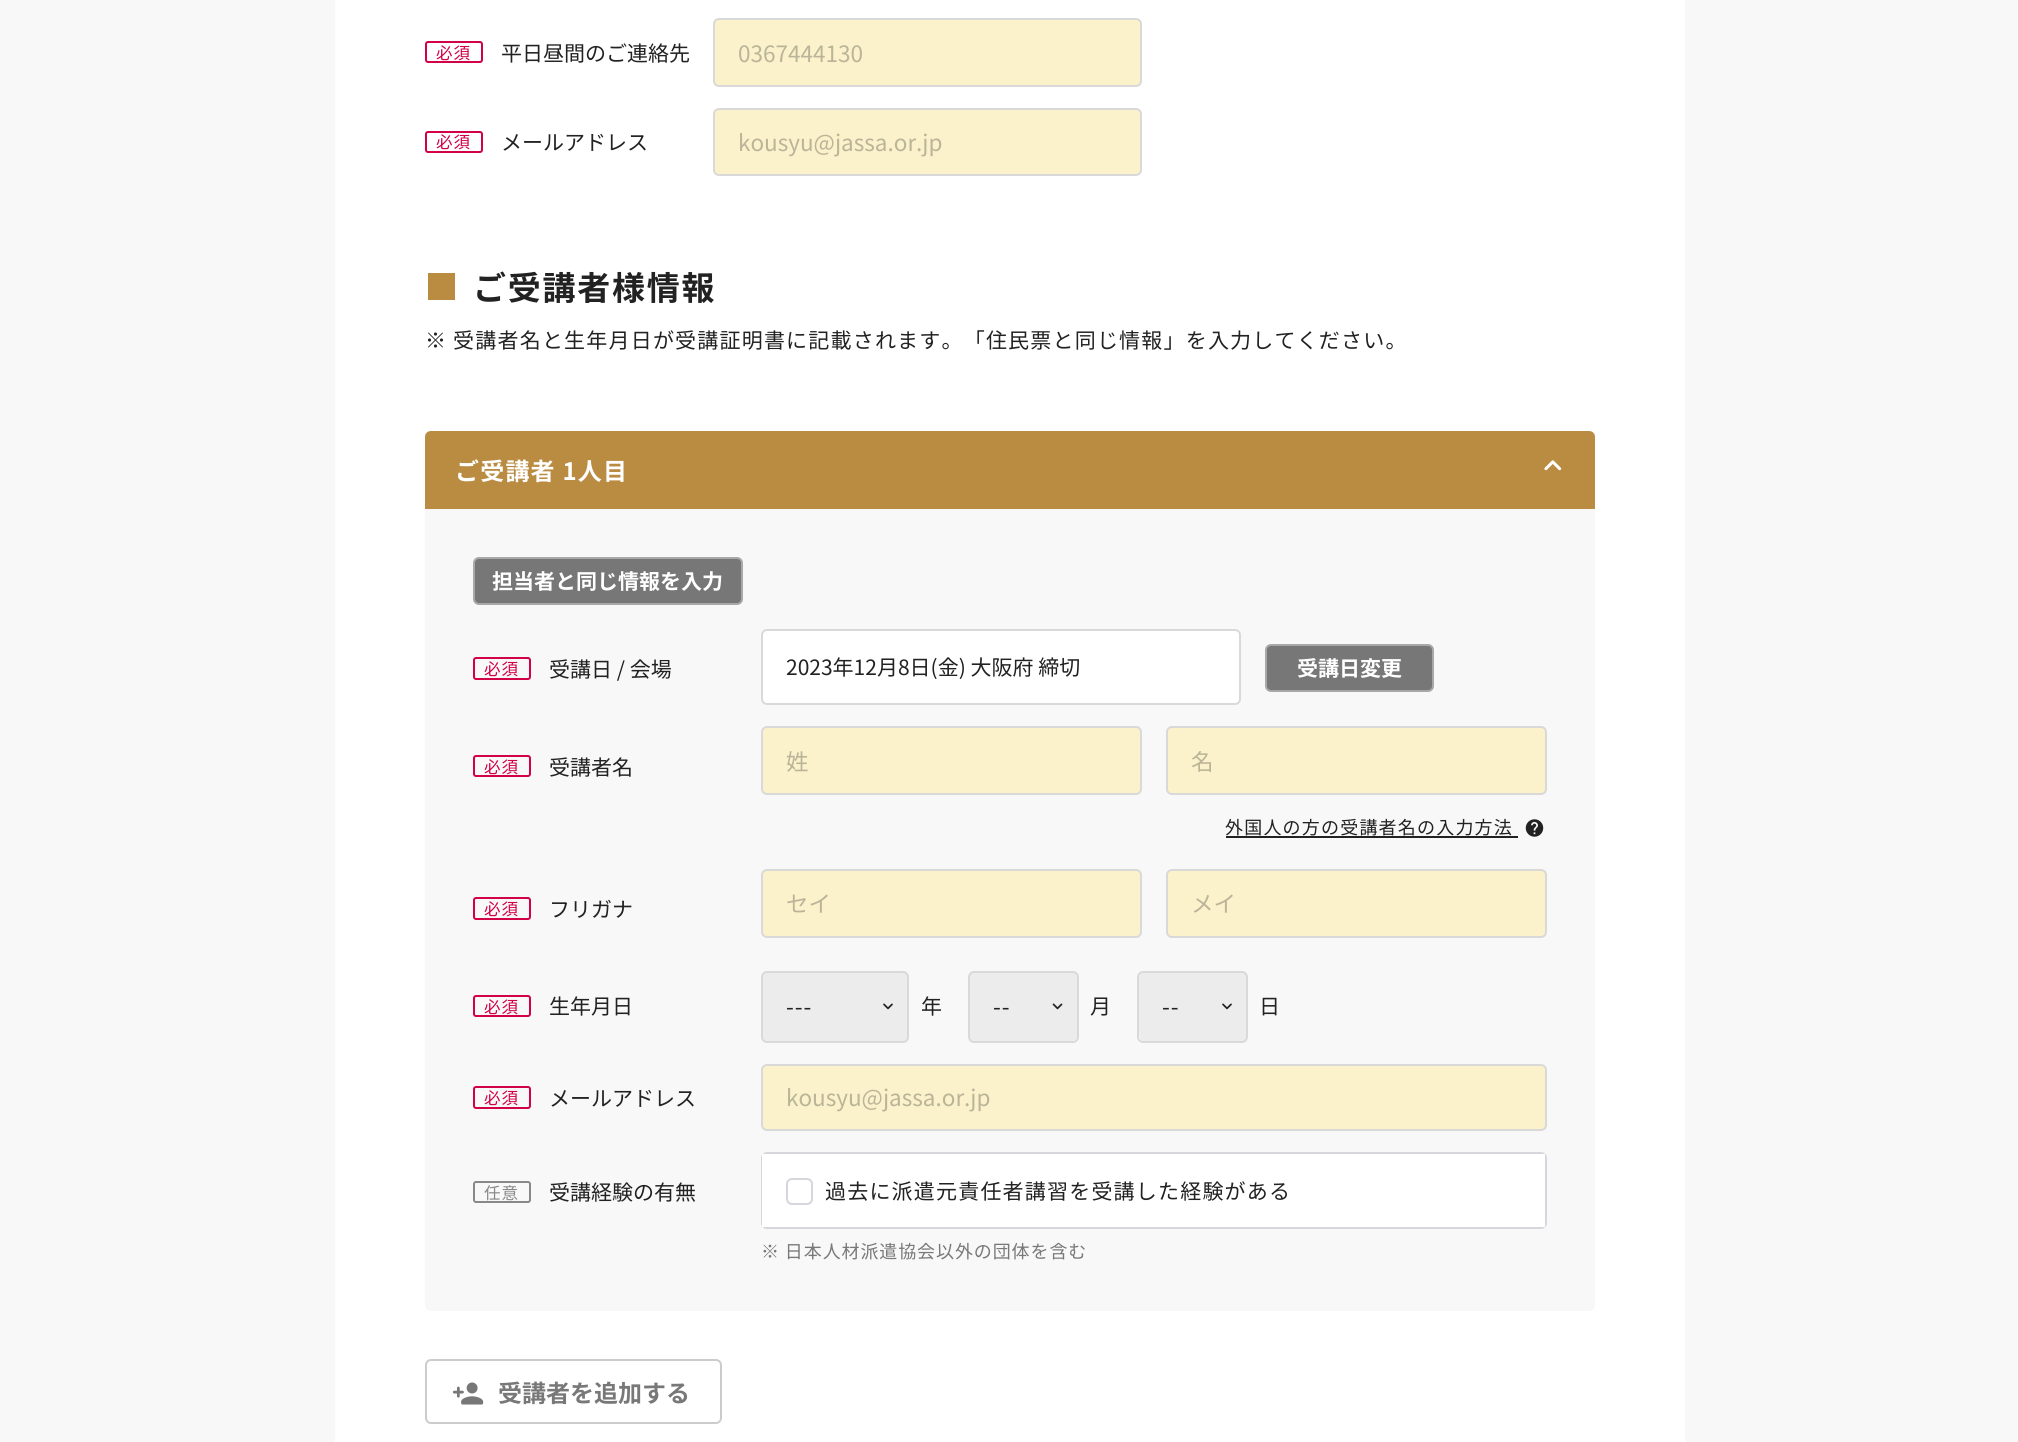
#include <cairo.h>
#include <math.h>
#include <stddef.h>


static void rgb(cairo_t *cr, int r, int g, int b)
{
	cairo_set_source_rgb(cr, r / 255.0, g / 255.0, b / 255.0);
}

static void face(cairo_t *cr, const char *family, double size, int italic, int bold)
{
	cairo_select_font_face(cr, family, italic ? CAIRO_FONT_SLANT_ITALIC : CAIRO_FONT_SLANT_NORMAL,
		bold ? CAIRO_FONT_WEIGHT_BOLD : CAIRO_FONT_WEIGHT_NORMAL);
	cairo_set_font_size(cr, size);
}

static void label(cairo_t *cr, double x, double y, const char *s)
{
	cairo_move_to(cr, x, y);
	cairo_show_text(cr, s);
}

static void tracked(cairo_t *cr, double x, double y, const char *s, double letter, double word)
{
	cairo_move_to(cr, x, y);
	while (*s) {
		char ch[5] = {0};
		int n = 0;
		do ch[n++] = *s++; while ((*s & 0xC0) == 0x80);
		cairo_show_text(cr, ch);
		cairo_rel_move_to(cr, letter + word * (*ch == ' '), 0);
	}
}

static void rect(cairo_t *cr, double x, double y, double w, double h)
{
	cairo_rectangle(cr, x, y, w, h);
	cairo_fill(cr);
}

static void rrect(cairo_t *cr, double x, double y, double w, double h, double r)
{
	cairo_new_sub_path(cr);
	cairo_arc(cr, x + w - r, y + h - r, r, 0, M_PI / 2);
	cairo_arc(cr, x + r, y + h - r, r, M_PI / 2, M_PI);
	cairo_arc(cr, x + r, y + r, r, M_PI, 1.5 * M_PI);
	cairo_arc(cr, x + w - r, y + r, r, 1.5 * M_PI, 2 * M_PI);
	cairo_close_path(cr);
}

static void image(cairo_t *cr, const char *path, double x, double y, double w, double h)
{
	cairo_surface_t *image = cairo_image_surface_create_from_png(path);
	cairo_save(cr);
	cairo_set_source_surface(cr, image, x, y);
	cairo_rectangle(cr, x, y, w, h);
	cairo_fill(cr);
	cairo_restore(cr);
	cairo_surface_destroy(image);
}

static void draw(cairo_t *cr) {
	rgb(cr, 248, 248, 248);
	cairo_paint(cr);
	rgb(cr, 255, 255, 255);
	rect(cr, 335, 0, 1350, 1442);
	rrect(cr, 426, 42, 56, 20, 2);
	rgb(cr, 209, 0, 72);
	cairo_stroke(cr);
	face(cr, "Noto Sans JP", 16.5, 0, 0);
	tracked(cr, 436, 59, "必須", 1, 0);
	face(cr, "Noto Sans JP", 21, 0, 0);
	rgb(cr, 34, 34, 34);
	label(cr, 501, 61, "平日昼間のご連絡先");
	rgb(cr, 251, 242, 203);
	rrect(cr, 714, 19, 427, 67, 5);
	cairo_fill_preserve(cr);
	rgb(cr, 217, 217, 217);
	cairo_stroke(cr);
	face(cr, "Noto Sans JP", 22.5, 0, 0);
	rgb(cr, 186, 180, 152);
	label(cr, 738, 62, "0367444130");
	rrect(cr, 426, 132, 56, 20, 2);
	rgb(cr, 209, 0, 72);
	cairo_stroke(cr);
	face(cr, "Noto Sans JP", 16.5, 0, 0);
	tracked(cr, 436, 148, "必須", 1, 0);
	face(cr, "Noto Sans JP", 21, 0, 0);
	rgb(cr, 34, 34, 34);
	label(cr, 501, 150, "メールアドレス");
	rgb(cr, 251, 242, 203);
	rrect(cr, 714, 109, 427, 66, 5);
	cairo_fill_preserve(cr);
	rgb(cr, 217, 217, 217);
	cairo_stroke(cr);
	face(cr, "Noto Sans JP", 22.5, 0, 0);
	rgb(cr, 186, 180, 152);
	label(cr, 738, 151, "kousyu@jassa.or.jp");
	rgb(cr, 186, 140, 66);
	rect(cr, 428, 273, 27, 27);
	face(cr, "Noto Sans JP", 33, 0, 1);
	rgb(cr, 34, 34, 34);
	tracked(cr, 473, 300, "ご受講者様情報", 1.75, 0);
	face(cr, "Noto Sans JP", 21, 0, 0);
	tracked(cr, 425, 348, "※ 受講者名と生年月日が受講証明書に記載されます。「住民票と同じ情報」を入力してください。", 1.2, 0);
	rgb(cr, 186, 140, 66);
	cairo_new_path(cr);
	cairo_move_to(cr, 431, 431);
	cairo_line_to(cr, 1589, 431);
	cairo_curve_to(cr, 1592.5, 431, 1595, 433.5, 1595, 437);
	cairo_line_to(cr, 1595, 509);
	cairo_line_to(cr, 425, 509);
	cairo_line_to(cr, 425, 437);
	cairo_curve_to(cr, 425, 433.5, 427.5, 431, 431, 431);
	cairo_close_path(cr);
	cairo_fill(cr);
	face(cr, "Noto Sans JP", 24, 0, 1);
	rgb(cr, 255, 255, 255);
	tracked(cr, 455, 480, "ご受講者 1人目", 1.2, 0);
	image(cr, "image0.png", 1544, 460, 18, 11);
	rgb(cr, 248, 248, 248);
	cairo_new_path(cr);
	cairo_move_to(cr, 425, 509);
	cairo_line_to(cr, 1595, 509);
	cairo_line_to(cr, 1595, 1305);
	cairo_curve_to(cr, 1595, 1308.5, 1592.5, 1311, 1589, 1311);
	cairo_line_to(cr, 431, 1311);
	cairo_curve_to(cr, 427.5, 1311, 425, 1308.5, 425, 1305);
	cairo_close_path(cr);
	cairo_fill(cr);
	rgb(cr, 119, 119, 119);
	rrect(cr, 474, 558, 268, 46, 5);
	cairo_fill_preserve(cr);
	rgb(cr, 168, 168, 168);
	cairo_stroke(cr);
	face(cr, "Noto Sans JP", 21, 0, 1);
	rgb(cr, 255, 255, 255);
	label(cr, 492, 589, "担当者と同じ情報を入力");
	rrect(cr, 474, 658, 56, 21, 2);
	rgb(cr, 209, 0, 72);
	cairo_stroke(cr);
	face(cr, "Noto Sans JP", 16.5, 0, 0);
	tracked(cr, 484, 675, "必須", 1, 0);
	face(cr, "Noto Sans JP", 21, 0, 0);
	rgb(cr, 34, 34, 34);
	label(cr, 549, 677, "受講日 / 会場");
	rgb(cr, 255, 255, 255);
	rrect(cr, 762, 630, 478, 74, 5);
	cairo_fill_preserve(cr);
	rgb(cr, 217, 217, 217);
	cairo_stroke(cr);
	rgb(cr, 34, 34, 34);
	label(cr, 786, 675, "2023年12月8日(金) 大阪府 締切");
	rgb(cr, 119, 119, 119);
	rrect(cr, 1266, 645, 167, 46, 5);
	cairo_fill_preserve(cr);
	rgb(cr, 168, 168, 168);
	cairo_stroke(cr);
	face(cr, "Noto Sans JP", 21, 0, 1);
	rgb(cr, 255, 255, 255);
	label(cr, 1297, 676, "受講日変更");
	rrect(cr, 474, 756, 56, 20, 2);
	rgb(cr, 209, 0, 72);
	cairo_stroke(cr);
	face(cr, "Noto Sans JP", 16.5, 0, 0);
	tracked(cr, 484, 773, "必須", 1, 0);
	face(cr, "Noto Sans JP", 21, 0, 0);
	rgb(cr, 34, 34, 34);
	label(cr, 549, 775, "受講者名");
	rgb(cr, 251, 242, 203);
	rrect(cr, 762, 727, 379, 67, 5);
	cairo_fill_preserve(cr);
	rgb(cr, 217, 217, 217);
	cairo_stroke(cr);
	face(cr, "Noto Sans JP", 22.5, 0, 0);
	rgb(cr, 186, 180, 152);
	label(cr, 786, 770, "姓");
	rgb(cr, 251, 242, 203);
	rrect(cr, 1167, 727, 379, 67, 5);
	cairo_fill_preserve(cr);
	rgb(cr, 217, 217, 217);
	cairo_stroke(cr);
	rgb(cr, 186, 180, 152);
	label(cr, 1191, 770, "名");
	face(cr, "Noto Sans JP", 18, 0, 0);
	rgb(cr, 34, 34, 34);
	tracked(cr, 1225, 834, "外国人の方の受講者名の入力方法", 1.2, 0);
	rect(cr, 1226, 836, 292, 2);
	image(cr, "image1.png", 1525, 819, 19, 18);
	rrect(cr, 474, 898, 56, 21, 2);
	rgb(cr, 209, 0, 72);
	cairo_stroke(cr);
	face(cr, "Noto Sans JP", 16.5, 0, 0);
	tracked(cr, 484, 915, "必須", 1, 0);
	face(cr, "Noto Sans JP", 21, 0, 0);
	rgb(cr, 34, 34, 34);
	label(cr, 549, 917, "フリガナ");
	rgb(cr, 251, 242, 203);
	rrect(cr, 762, 870, 379, 67, 5);
	cairo_fill_preserve(cr);
	rgb(cr, 217, 217, 217);
	cairo_stroke(cr);
	face(cr, "Noto Sans JP", 22.5, 0, 0);
	rgb(cr, 186, 180, 152);
	label(cr, 786, 912, "セイ");
	rgb(cr, 251, 242, 203);
	rrect(cr, 1167, 870, 379, 67, 5);
	cairo_fill_preserve(cr);
	rgb(cr, 217, 217, 217);
	cairo_stroke(cr);
	rgb(cr, 186, 180, 152);
	label(cr, 1191, 912, "メイ");
	rrect(cr, 474, 996, 56, 20, 2);
	rgb(cr, 209, 0, 72);
	cairo_stroke(cr);
	face(cr, "Noto Sans JP", 16.5, 0, 0);
	tracked(cr, 484, 1013, "必須", 1, 0);
	face(cr, "Noto Sans JP", 21, 0, 0);
	rgb(cr, 34, 34, 34);
	label(cr, 549, 1014, "生年月日");
	rgb(cr, 236, 236, 236);
	cairo_new_path(cr);
	cairo_move_to(cr, 767, 972);
	cairo_curve_to(cr, 764, 972, 762, 974, 762, 977);
	cairo_line_to(cr, 762, 1036);
	cairo_curve_to(cr, 762, 1039, 764, 1041, 767, 1041);
	cairo_line_to(cr, 903, 1041);
	cairo_curve_to(cr, 906, 1041, 908, 1039, 908, 1036);
	cairo_line_to(cr, 908, 977);
	cairo_curve_to(cr, 908, 974, 906, 972, 903, 972);
	cairo_close_path(cr);
	cairo_fill(cr);
	rrect(cr, 762, 972, 146, 70, 5);
	rgb(cr, 217, 217, 217);
	cairo_stroke(cr);
	face(cr, "Noto Sans JP", 22.5, 0, 0);
	rgb(cr, 34, 34, 34);
	tracked(cr, 786, 1015, "---", 1, 0);
	image(cr, "image2.png", 883, 1003, 10, 7);
	face(cr, "Noto Sans JP", 21, 0, 0);
	tracked(cr, 921, 1014, "年", 1.2, 0);
	rgb(cr, 255, 255, 255);
	rrect(cr, 968, 971, 111, 72, 6);
	cairo_fill(cr);
	rgb(cr, 236, 236, 236);
	cairo_new_path(cr);
	cairo_move_to(cr, 974, 972);
	cairo_curve_to(cr, 971, 972, 969, 974, 969, 977);
	cairo_line_to(cr, 969, 1036);
	cairo_curve_to(cr, 969, 1039, 971, 1041, 974, 1041);
	cairo_line_to(cr, 1072, 1041);
	cairo_curve_to(cr, 1075, 1041, 1077, 1039, 1077, 1036);
	cairo_line_to(cr, 1077, 977);
	cairo_curve_to(cr, 1077, 974, 1075, 972, 1072, 972);
	cairo_close_path(cr);
	cairo_fill(cr);
	rrect(cr, 969, 972, 109, 70, 5);
	rgb(cr, 217, 217, 217);
	cairo_stroke(cr);
	face(cr, "Noto Sans JP", 22.5, 0, 0);
	rgb(cr, 34, 34, 34);
	tracked(cr, 993, 1015, "--", 1, 0);
	image(cr, "image3.png", 1052, 1003, 11, 7);
	face(cr, "Noto Sans JP", 21, 0, 0);
	tracked(cr, 1090, 1014, "月", 1.2, 0);
	rgb(cr, 255, 255, 255);
	rrect(cr, 1137, 971, 111, 72, 6);
	cairo_fill(cr);
	rgb(cr, 236, 236, 236);
	cairo_new_path(cr);
	cairo_move_to(cr, 1144, 972);
	cairo_curve_to(cr, 1137, 972, 1139, 983, 1139, 987);
	cairo_line_to(cr, 1139, 1026);
	cairo_curve_to(cr, 1139, 1045, 1139, 1041, 1160, 1041);
	cairo_line_to(cr, 1226, 1041);
	cairo_curve_to(cr, 1247, 1041, 1247, 1045, 1247, 1026);
	cairo_line_to(cr, 1247, 987);
	cairo_curve_to(cr, 1247, 983, 1249, 972, 1242, 972);
	cairo_close_path(cr);
	cairo_fill(cr);
	rrect(cr, 1138, 972, 109, 70, 5);
	rgb(cr, 217, 217, 217);
	cairo_stroke(cr);
	face(cr, "Noto Sans JP", 22.5, 0, 0);
	rgb(cr, 34, 34, 34);
	tracked(cr, 1162, 1015, "--", 1, 0);
	image(cr, "image2.png", 1222, 1003, 10, 7);
	face(cr, "Noto Sans JP", 21, 0, 0);
	tracked(cr, 1259, 1014, "日", 1.2, 0);
	rrect(cr, 474, 1087, 56, 21, 2);
	rgb(cr, 209, 0, 72);
	cairo_stroke(cr);
	face(cr, "Noto Sans JP", 16.5, 0, 0);
	tracked(cr, 484, 1104, "必須", 1, 0);
	face(cr, "Noto Sans JP", 21, 0, 0);
	rgb(cr, 34, 34, 34);
	label(cr, 549, 1106, "メールアドレス");
	rgb(cr, 251, 242, 203);
	rrect(cr, 762, 1065, 784, 65, 5);
	cairo_fill_preserve(cr);
	rgb(cr, 217, 217, 217);
	cairo_stroke(cr);
	face(cr, "Noto Sans JP", 22.5, 0, 0);
	rgb(cr, 186, 180, 152);
	label(cr, 786, 1106, "kousyu@jassa.or.jp");
	rrect(cr, 474, 1182, 56, 20, 2);
	rgb(cr, 136, 136, 136);
	cairo_stroke(cr);
	face(cr, "Noto Sans JP", 16.5, 0, 0);
	tracked(cr, 484, 1199, "任意", 1, 0);
	face(cr, "Noto Sans JP", 21, 0, 0);
	rgb(cr, 34, 34, 34);
	label(cr, 549, 1200, "受講経験の有無");
	rrect(cr, 762, 1153, 784, 75, 5);
	rgb(cr, 214, 215, 221);
	cairo_stroke(cr);
	rgb(cr, 255, 255, 255);
	rect(cr, 762, 1154, 783, 73);
	rrect(cr, 787, 1179, 25, 25, 5);
	rgb(cr, 214, 215, 221);
	cairo_stroke(cr);
	rgb(cr, 34, 34, 34);
	tracked(cr, 825, 1199, "過去に派遣元責任者講習を受講した経験がある", 1.2, 0);
	face(cr, "Noto Sans JP", 18, 0, 0);
	rgb(cr, 120, 120, 120);
	tracked(cr, 761, 1258, "※ 日本人材派遣協会以外の団体を含む", 0.9, 0);
	rrect(cr, 426, 1360, 295, 63, 5);
	rgb(cr, 204, 204, 204);
	cairo_stroke(cr);
	image(cr, "image4.png", 452, 1382, 32, 23);
	face(cr, "Noto Sans JP", 24, 0, 1);
	rgb(cr, 120, 120, 120);
	label(cr, 498, 1402, "受講者を追加する");
}

int main(void) {
	cairo_surface_t *surface = cairo_image_surface_create(CAIRO_FORMAT_RGB24, 2018, 1442);
	cairo_t *cr = cairo_create(surface);
	cairo_font_options_t *options = cairo_font_options_create();
	cairo_font_options_set_hint_metrics(options, CAIRO_HINT_METRICS_OFF);
	cairo_font_options_set_hint_style(options, CAIRO_HINT_STYLE_NONE);
	cairo_set_font_options(cr, options);
	cairo_set_miter_limit(cr, 4);
	draw(cr);
	cairo_surface_write_to_png(surface, "render.png");
	cairo_font_options_destroy(options);
	cairo_destroy(cr);
	cairo_surface_destroy(surface);
	return 0;
}
